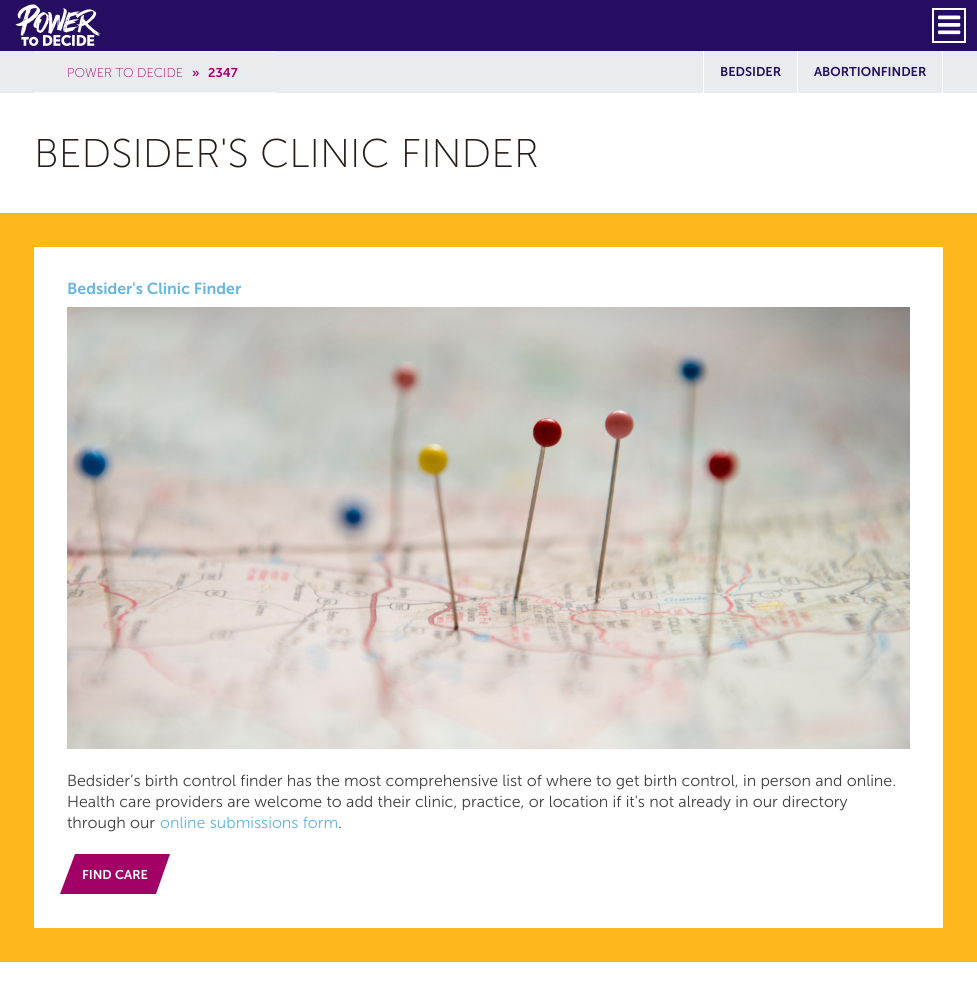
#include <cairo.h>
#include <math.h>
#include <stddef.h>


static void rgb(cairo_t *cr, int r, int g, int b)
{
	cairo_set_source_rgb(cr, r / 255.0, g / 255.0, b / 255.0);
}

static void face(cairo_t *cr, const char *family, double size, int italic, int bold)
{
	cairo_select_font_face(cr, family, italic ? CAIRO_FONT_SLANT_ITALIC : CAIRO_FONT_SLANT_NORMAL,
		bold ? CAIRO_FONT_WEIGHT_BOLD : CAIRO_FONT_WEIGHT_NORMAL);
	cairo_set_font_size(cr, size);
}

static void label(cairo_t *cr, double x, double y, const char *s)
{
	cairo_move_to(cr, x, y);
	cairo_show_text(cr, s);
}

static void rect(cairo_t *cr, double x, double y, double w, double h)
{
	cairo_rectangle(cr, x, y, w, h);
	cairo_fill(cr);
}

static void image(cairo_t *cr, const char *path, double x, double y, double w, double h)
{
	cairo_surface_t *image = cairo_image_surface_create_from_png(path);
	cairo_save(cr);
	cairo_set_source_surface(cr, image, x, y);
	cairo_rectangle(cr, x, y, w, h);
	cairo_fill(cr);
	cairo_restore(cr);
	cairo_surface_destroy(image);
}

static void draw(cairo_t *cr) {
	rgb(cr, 255, 255, 255);
	cairo_paint(cr);
	rgb(cr, 37, 14, 98);
	rect(cr, 0, 0, 977, 51);
	image(cr, "image0.png", 15, 4, 86, 42);
	cairo_rectangle(cr, 933, 9, 32, 33);
	rgb(cr, 255, 255, 255);
	cairo_stroke(cr);
	image(cr, "image1.png", 938, 15, 23, 20);
	rgb(cr, 233, 236, 239);
	rect(cr, 0, 51, 977, 42);
	rgb(cr, 245, 245, 245);
	rect(cr, 34, 51, 242, 1);
	rect(cr, 34, 92, 242, 1);
	face(cr, "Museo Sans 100 Light", 12.75, 0, 0);
	rgb(cr, 162, 0, 103);
	label(cr, 67, 77, "POWER TO DECIDE");
	face(cr, "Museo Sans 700 SemiBold", 12.75, 0, 0);
	label(cr, 192, 77, "»");
	label(cr, 208, 77, "2347");
	rgb(cr, 255, 255, 255);
	rect(cr, 703, 51, 1, 42);
	rgb(cr, 37, 14, 98);
	label(cr, 720, 76, "BEDSIDER");
	rgb(cr, 255, 255, 255);
	rect(cr, 942, 51, 1, 42);
	rect(cr, 797, 51, 1, 42);
	rgb(cr, 37, 14, 98);
	label(cr, 814, 76, "ABORTIONFINDER");
	face(cr, "Museo Sans 100 Light", 40, 0, 0);
	rgb(cr, 37, 28, 24);
	label(cr, 34, 167, "BEDSIDER'S CLINIC FINDER");
	rgb(cr, 255, 184, 28);
	rect(cr, 0, 213, 977, 749);
	rgb(cr, 255, 255, 255);
	rect(cr, 34, 247, 909, 681);
	face(cr, "Museo Sans 700 SemiBold", 16, 0, 0);
	rgb(cr, 98, 181, 229);
	label(cr, 67, 294, "Bedsider's Clinic Finder");
	image(cr, "image2.png", 67, 307, 843, 442);
	face(cr, "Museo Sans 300 Light", 16, 0, 0);
	rgb(cr, 63, 63, 63);
	label(cr, 67, 786, "Bedsider’s birth control finder has the most comprehensive list of where to get birth control, in person and online.");
	label(cr, 67, 807, "Health care providers are welcome to add their clinic, practice, or location if it's not already in our directory");
	label(cr, 67, 828, "through our");
	rgb(cr, 98, 181, 229);
	label(cr, 160, 828, "online submissions form");
	rgb(cr, 63, 63, 63);
	label(cr, 338, 828, ".");
	rgb(cr, 162, 0, 103);
	cairo_new_path(cr);
	cairo_move_to(cr, 75, 854);
	cairo_line_to(cr, 170, 854);
	cairo_line_to(cr, 156, 894);
	cairo_line_to(cr, 60, 894);
	cairo_close_path(cr);
	cairo_fill(cr);
	face(cr, "Museo Sans 700 SemiBold", 12.75, 0, 0);
	rgb(cr, 255, 255, 255);
	label(cr, 82, 879, "FIND CARE");
}

int main(void) {
	cairo_surface_t *surface = cairo_image_surface_create(CAIRO_FORMAT_RGB24, 977, 999);
	cairo_t *cr = cairo_create(surface);
	cairo_font_options_t *options = cairo_font_options_create();
	cairo_font_options_set_hint_metrics(options, CAIRO_HINT_METRICS_OFF);
	cairo_font_options_set_hint_style(options, CAIRO_HINT_STYLE_NONE);
	cairo_set_font_options(cr, options);
	cairo_set_miter_limit(cr, 4);
	draw(cr);
	cairo_surface_write_to_png(surface, "render.png");
	cairo_font_options_destroy(options);
	cairo_destroy(cr);
	cairo_surface_destroy(surface);
	return 0;
}
